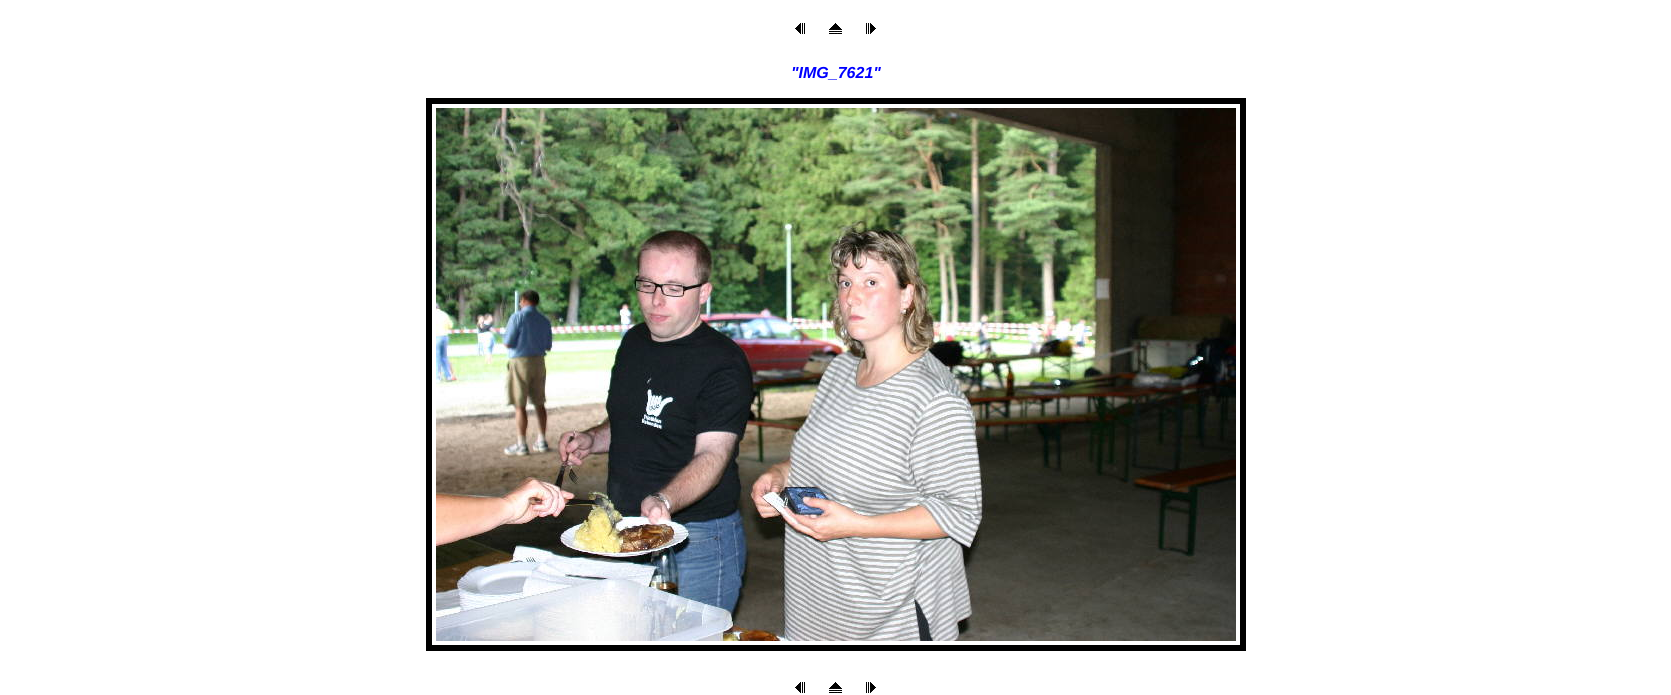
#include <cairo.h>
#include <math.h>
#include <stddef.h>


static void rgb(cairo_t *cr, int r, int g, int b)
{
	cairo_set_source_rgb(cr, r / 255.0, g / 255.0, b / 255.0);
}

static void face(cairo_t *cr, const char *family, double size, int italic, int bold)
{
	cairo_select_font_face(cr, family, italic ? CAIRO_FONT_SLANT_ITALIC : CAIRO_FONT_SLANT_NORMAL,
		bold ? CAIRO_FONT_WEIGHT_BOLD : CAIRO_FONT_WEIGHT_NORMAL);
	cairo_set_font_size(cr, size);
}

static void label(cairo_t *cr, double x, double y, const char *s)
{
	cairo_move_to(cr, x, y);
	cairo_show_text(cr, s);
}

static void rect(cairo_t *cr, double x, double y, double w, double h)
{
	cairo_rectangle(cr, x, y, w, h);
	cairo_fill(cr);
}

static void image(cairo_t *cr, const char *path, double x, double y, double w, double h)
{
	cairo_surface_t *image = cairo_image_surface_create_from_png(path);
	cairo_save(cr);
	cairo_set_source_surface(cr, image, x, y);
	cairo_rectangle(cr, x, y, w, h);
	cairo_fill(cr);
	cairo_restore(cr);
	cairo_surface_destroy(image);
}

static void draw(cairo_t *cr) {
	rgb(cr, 255, 255, 255);
	cairo_paint(cr);
	image(cr, "image0.png", 795, 23, 10, 11);
	image(cr, "image1.png", 829, 23, 13, 11);
	image(cr, "image2.png", 866, 23, 10, 11);
	face(cr, "Liberation Sans", 16, 1, 1);
	rgb(cr, 0, 0, 255);
	label(cr, 791, 78, "\"IMG_7621\"");
	rgb(cr, 0, 0, 0);
	rect(cr, 426, 98, 820, 6);
	rect(cr, 426, 104, 6, 547);
	image(cr, "image3.png", 436, 108, 800, 533);
	rect(cr, 1240, 104, 6, 541);
	rect(cr, 432, 645, 814, 6);
	image(cr, "image0.png", 795, 682, 10, 11);
	image(cr, "image1.png", 829, 682, 13, 11);
	image(cr, "image2.png", 866, 682, 10, 11);
}

int main(void) {
	cairo_surface_t *surface = cairo_image_surface_create(CAIRO_FORMAT_RGB24, 1671, 695);
	cairo_t *cr = cairo_create(surface);
	cairo_font_options_t *options = cairo_font_options_create();
	cairo_font_options_set_hint_metrics(options, CAIRO_HINT_METRICS_OFF);
	cairo_font_options_set_hint_style(options, CAIRO_HINT_STYLE_NONE);
	cairo_set_font_options(cr, options);
	cairo_set_miter_limit(cr, 4);
	draw(cr);
	cairo_surface_write_to_png(surface, "render.png");
	cairo_font_options_destroy(options);
	cairo_destroy(cr);
	cairo_surface_destroy(surface);
	return 0;
}
